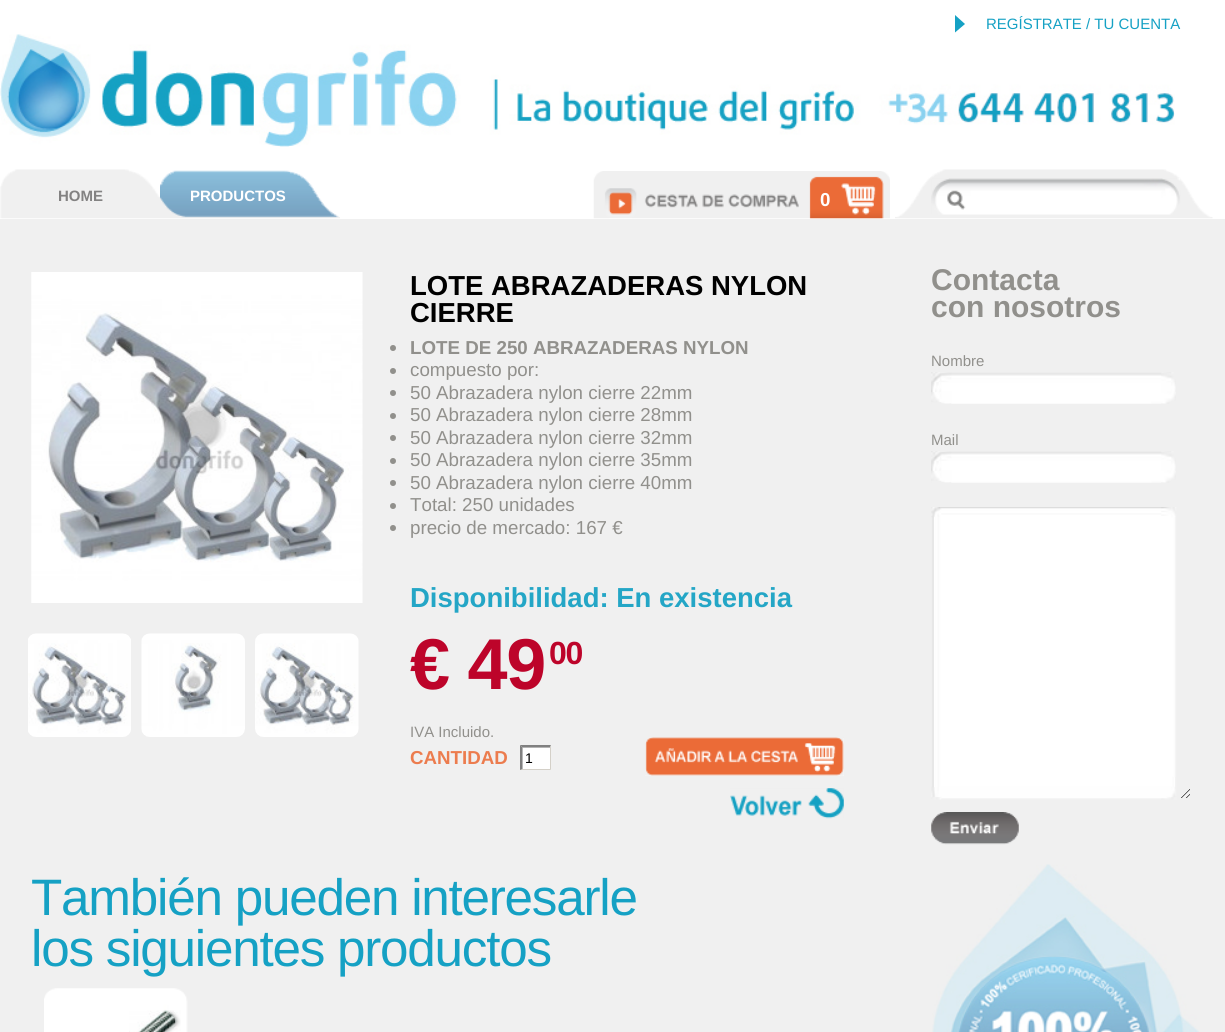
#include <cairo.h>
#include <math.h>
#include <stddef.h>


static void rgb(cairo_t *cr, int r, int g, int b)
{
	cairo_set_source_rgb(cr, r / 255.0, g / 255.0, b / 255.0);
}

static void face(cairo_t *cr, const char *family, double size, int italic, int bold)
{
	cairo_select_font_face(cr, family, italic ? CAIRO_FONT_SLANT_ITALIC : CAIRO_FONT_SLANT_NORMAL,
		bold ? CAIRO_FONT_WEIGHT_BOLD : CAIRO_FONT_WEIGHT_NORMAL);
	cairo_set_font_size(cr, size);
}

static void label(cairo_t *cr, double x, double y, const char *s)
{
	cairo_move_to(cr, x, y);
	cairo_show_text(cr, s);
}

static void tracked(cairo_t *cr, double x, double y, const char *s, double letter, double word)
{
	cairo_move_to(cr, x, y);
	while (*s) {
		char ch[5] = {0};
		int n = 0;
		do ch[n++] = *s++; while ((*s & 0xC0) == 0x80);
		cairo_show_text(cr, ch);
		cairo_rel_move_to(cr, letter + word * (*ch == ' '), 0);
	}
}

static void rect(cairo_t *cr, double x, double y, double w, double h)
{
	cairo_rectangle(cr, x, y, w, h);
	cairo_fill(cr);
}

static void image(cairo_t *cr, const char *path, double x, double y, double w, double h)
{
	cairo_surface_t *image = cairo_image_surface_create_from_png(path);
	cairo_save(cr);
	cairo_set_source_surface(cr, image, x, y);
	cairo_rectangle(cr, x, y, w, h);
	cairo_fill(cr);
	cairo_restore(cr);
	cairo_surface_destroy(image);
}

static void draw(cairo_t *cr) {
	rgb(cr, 240, 240, 240);
	cairo_paint(cr);
	rgb(cr, 255, 255, 255);
	rect(cr, 0, 0, 1225, 219);
	rgb(cr, 21, 161, 196);
	cairo_new_path(cr);
	cairo_move_to(cr, 955, 32.5);
	cairo_line_to(cr, 955, 15);
	cairo_line_to(cr, 965, 24);
	cairo_close_path(cr);
	cairo_fill(cr);
	face(cr, "Liberation Sans", 15, 0, 0);
	label(cr, 986, 29, "REGÍSTRATE / TU CUENTA");
	image(cr, "image0.png", 0, 34, 1175, 113);
	image(cr, "image1.png", 0, 169, 160, 50);
	face(cr, "Liberation Sans", 15, 0, 1);
	rgb(cr, 131, 130, 130);
	label(cr, 58, 201, "HOME");
	image(cr, "image2.png", 160, 170, 180, 49);
	rgb(cr, 255, 255, 255);
	label(cr, 190, 201, "PRODUCTOS");
	image(cr, "image3.png", 593, 171, 297, 48);
	face(cr, "Liberation Sans", 18.75, 0, 1);
	label(cr, 820, 206, "0");
	image(cr, "image4.png", 895, 169, 318, 50);
	image(cr, "image5.png", 931, 178, 249, 37);
	image(cr, "image6.png", 31, 272, 332, 331);
	image(cr, "image7.png", 28, 633, 103, 104);
	image(cr, "image8.png", 141, 633, 104, 104);
	image(cr, "image9.png", 255, 633, 104, 104);
	face(cr, "Liberation Sans", 27.5, 0, 1);
	rgb(cr, 0, 0, 0);
	label(cr, 410, 295, "LOTE ABRAZADERAS NYLON");
	label(cr, 410, 322, "CIERRE");
	rgb(cr, 145, 144, 140);
	cairo_new_path(cr);
	cairo_arc(cr, 393, 348, 3, 0, 2 * M_PI);
	cairo_fill(cr);
	face(cr, "Liberation Sans", 18.75, 0, 1);
	label(cr, 410, 354, "LOTE DE 250 ABRAZADERAS NYLON");
	cairo_new_path(cr);
	cairo_arc(cr, 393, 371, 3, 0, 2 * M_PI);
	cairo_fill(cr);
	face(cr, "Liberation Sans", 18.75, 0, 0);
	label(cr, 410, 376, "compuesto por:");
	cairo_new_path(cr);
	cairo_arc(cr, 393, 393, 3, 0, 2 * M_PI);
	cairo_fill(cr);
	label(cr, 410, 399, "50 Abrazadera nylon cierre 22mm");
	cairo_new_path(cr);
	cairo_arc(cr, 393, 416, 3, 0, 2 * M_PI);
	cairo_fill(cr);
	label(cr, 410, 421, "50 Abrazadera nylon cierre 28mm");
	cairo_new_path(cr);
	cairo_arc(cr, 393, 438, 3, 0, 2 * M_PI);
	cairo_fill(cr);
	label(cr, 410, 444, "50 Abrazadera nylon cierre 32mm");
	cairo_new_path(cr);
	cairo_arc(cr, 393, 461, 3, 0, 2 * M_PI);
	cairo_fill(cr);
	label(cr, 410, 466, "50 Abrazadera nylon cierre 35mm");
	cairo_new_path(cr);
	cairo_arc(cr, 393, 483, 3, 0, 2 * M_PI);
	cairo_fill(cr);
	label(cr, 410, 489, "50 Abrazadera nylon cierre 40mm");
	cairo_new_path(cr);
	cairo_arc(cr, 393, 506, 3, 0, 2 * M_PI);
	cairo_fill(cr);
	label(cr, 410, 511, "Total: 250 unidades");
	cairo_new_path(cr);
	cairo_arc(cr, 393, 528, 3, 0, 2 * M_PI);
	cairo_fill(cr);
	label(cr, 410, 534, "precio de mercado: 167 €");
	face(cr, "Liberation Sans", 27.5, 0, 1);
	rgb(cr, 36, 166, 198);
	label(cr, 410, 607, "Disponibilidad: En existencia");
	face(cr, "Liberation Sans", 72, 0, 1);
	rgb(cr, 189, 4, 42);
	tracked(cr, 410, 689, "€ 49", -1.25, 0);
	face(cr, "Liberation Sans", 32, 0, 1);
	tracked(cr, 549, 664, "00", -1.25, 0);
	face(cr, "Liberation Sans", 15, 0, 0);
	rgb(cr, 145, 144, 140);
	label(cr, 410, 737, "IVA Incluido.");
	face(cr, "Liberation Sans", 18.75, 0, 1);
	rgb(cr, 236, 124, 78);
	label(cr, 410, 764, "CANTIDAD");
	rgb(cr, 255, 255, 255);
	rect(cr, 523, 748, 27, 21);
	rgb(cr, 128, 128, 128);
	cairo_new_path(cr);
	cairo_move_to(cr, 520, 745);
	cairo_line_to(cr, 551, 745);
	cairo_line_to(cr, 550, 747.5);
	cairo_line_to(cr, 522.5, 747.5);
	cairo_close_path(cr);
	cairo_fill(cr);
	rgb(cr, 212, 208, 200);
	cairo_new_path(cr);
	cairo_move_to(cr, 551, 745);
	cairo_line_to(cr, 551, 770);
	cairo_line_to(cr, 550, 769);
	cairo_line_to(cr, 550, 747.5);
	cairo_close_path(cr);
	cairo_fill(cr);
	cairo_new_path(cr);
	cairo_move_to(cr, 551, 770);
	cairo_line_to(cr, 520, 770);
	cairo_line_to(cr, 522.5, 769);
	cairo_line_to(cr, 550, 769);
	cairo_close_path(cr);
	cairo_fill(cr);
	rgb(cr, 128, 128, 128);
	cairo_new_path(cr);
	cairo_move_to(cr, 520, 770);
	cairo_line_to(cr, 520, 745);
	cairo_line_to(cr, 522.5, 747.5);
	cairo_line_to(cr, 522.5, 769);
	cairo_close_path(cr);
	cairo_fill(cr);
	face(cr, "Liberation Sans", 14, 0, 0);
	rgb(cr, 0, 0, 0);
	label(cr, 525, 763, "1");
	rgb(cr, 255, 255, 255);
	rect(cr, 645, 738, 199, 38);
	image(cr, "image10.png", 645, 737, 199, 39);
	image(cr, "image11.png", 730, 788, 114, 31);
	face(cr, "Liberation Sans", 51.25, 0, 0);
	rgb(cr, 21, 161, 196);
	tracked(cr, 31, 915, "También pueden interesarle", -1.25, 0);
	tracked(cr, 31, 966, "los siguientes productos", -1.25, 0);
	image(cr, "image12.png", 44, 988, 144, 44);
	image(cr, "image13.png", 129, 1010, 52, 22);
	face(cr, "Liberation Sans", 30, 0, 1);
	rgb(cr, 145, 144, 140);
	label(cr, 931, 290, "Contacta");
	label(cr, 931, 317, "con nosotros");
	face(cr, "Liberation Sans", 15, 0, 0);
	label(cr, 931, 366, "Nombre");
	image(cr, "image14.png", 931, 372, 245, 32);
	label(cr, 931, 445, "Mail");
	image(cr, "image15.png", 931, 451, 245, 32);
	image(cr, "image16.png", 931, 507, 259, 293);
	image(cr, "image17.png", 931, 812, 88, 33);
	image(cr, "image18.png", 932, 864, 267, 168);
}

int main(void) {
	cairo_surface_t *surface = cairo_image_surface_create(CAIRO_FORMAT_RGB24, 1225, 1032);
	cairo_t *cr = cairo_create(surface);
	cairo_font_options_t *options = cairo_font_options_create();
	cairo_font_options_set_hint_metrics(options, CAIRO_HINT_METRICS_OFF);
	cairo_font_options_set_hint_style(options, CAIRO_HINT_STYLE_NONE);
	cairo_set_font_options(cr, options);
	cairo_set_miter_limit(cr, 4);
	draw(cr);
	cairo_surface_write_to_png(surface, "render.png");
	cairo_font_options_destroy(options);
	cairo_destroy(cr);
	cairo_surface_destroy(surface);
	return 0;
}
